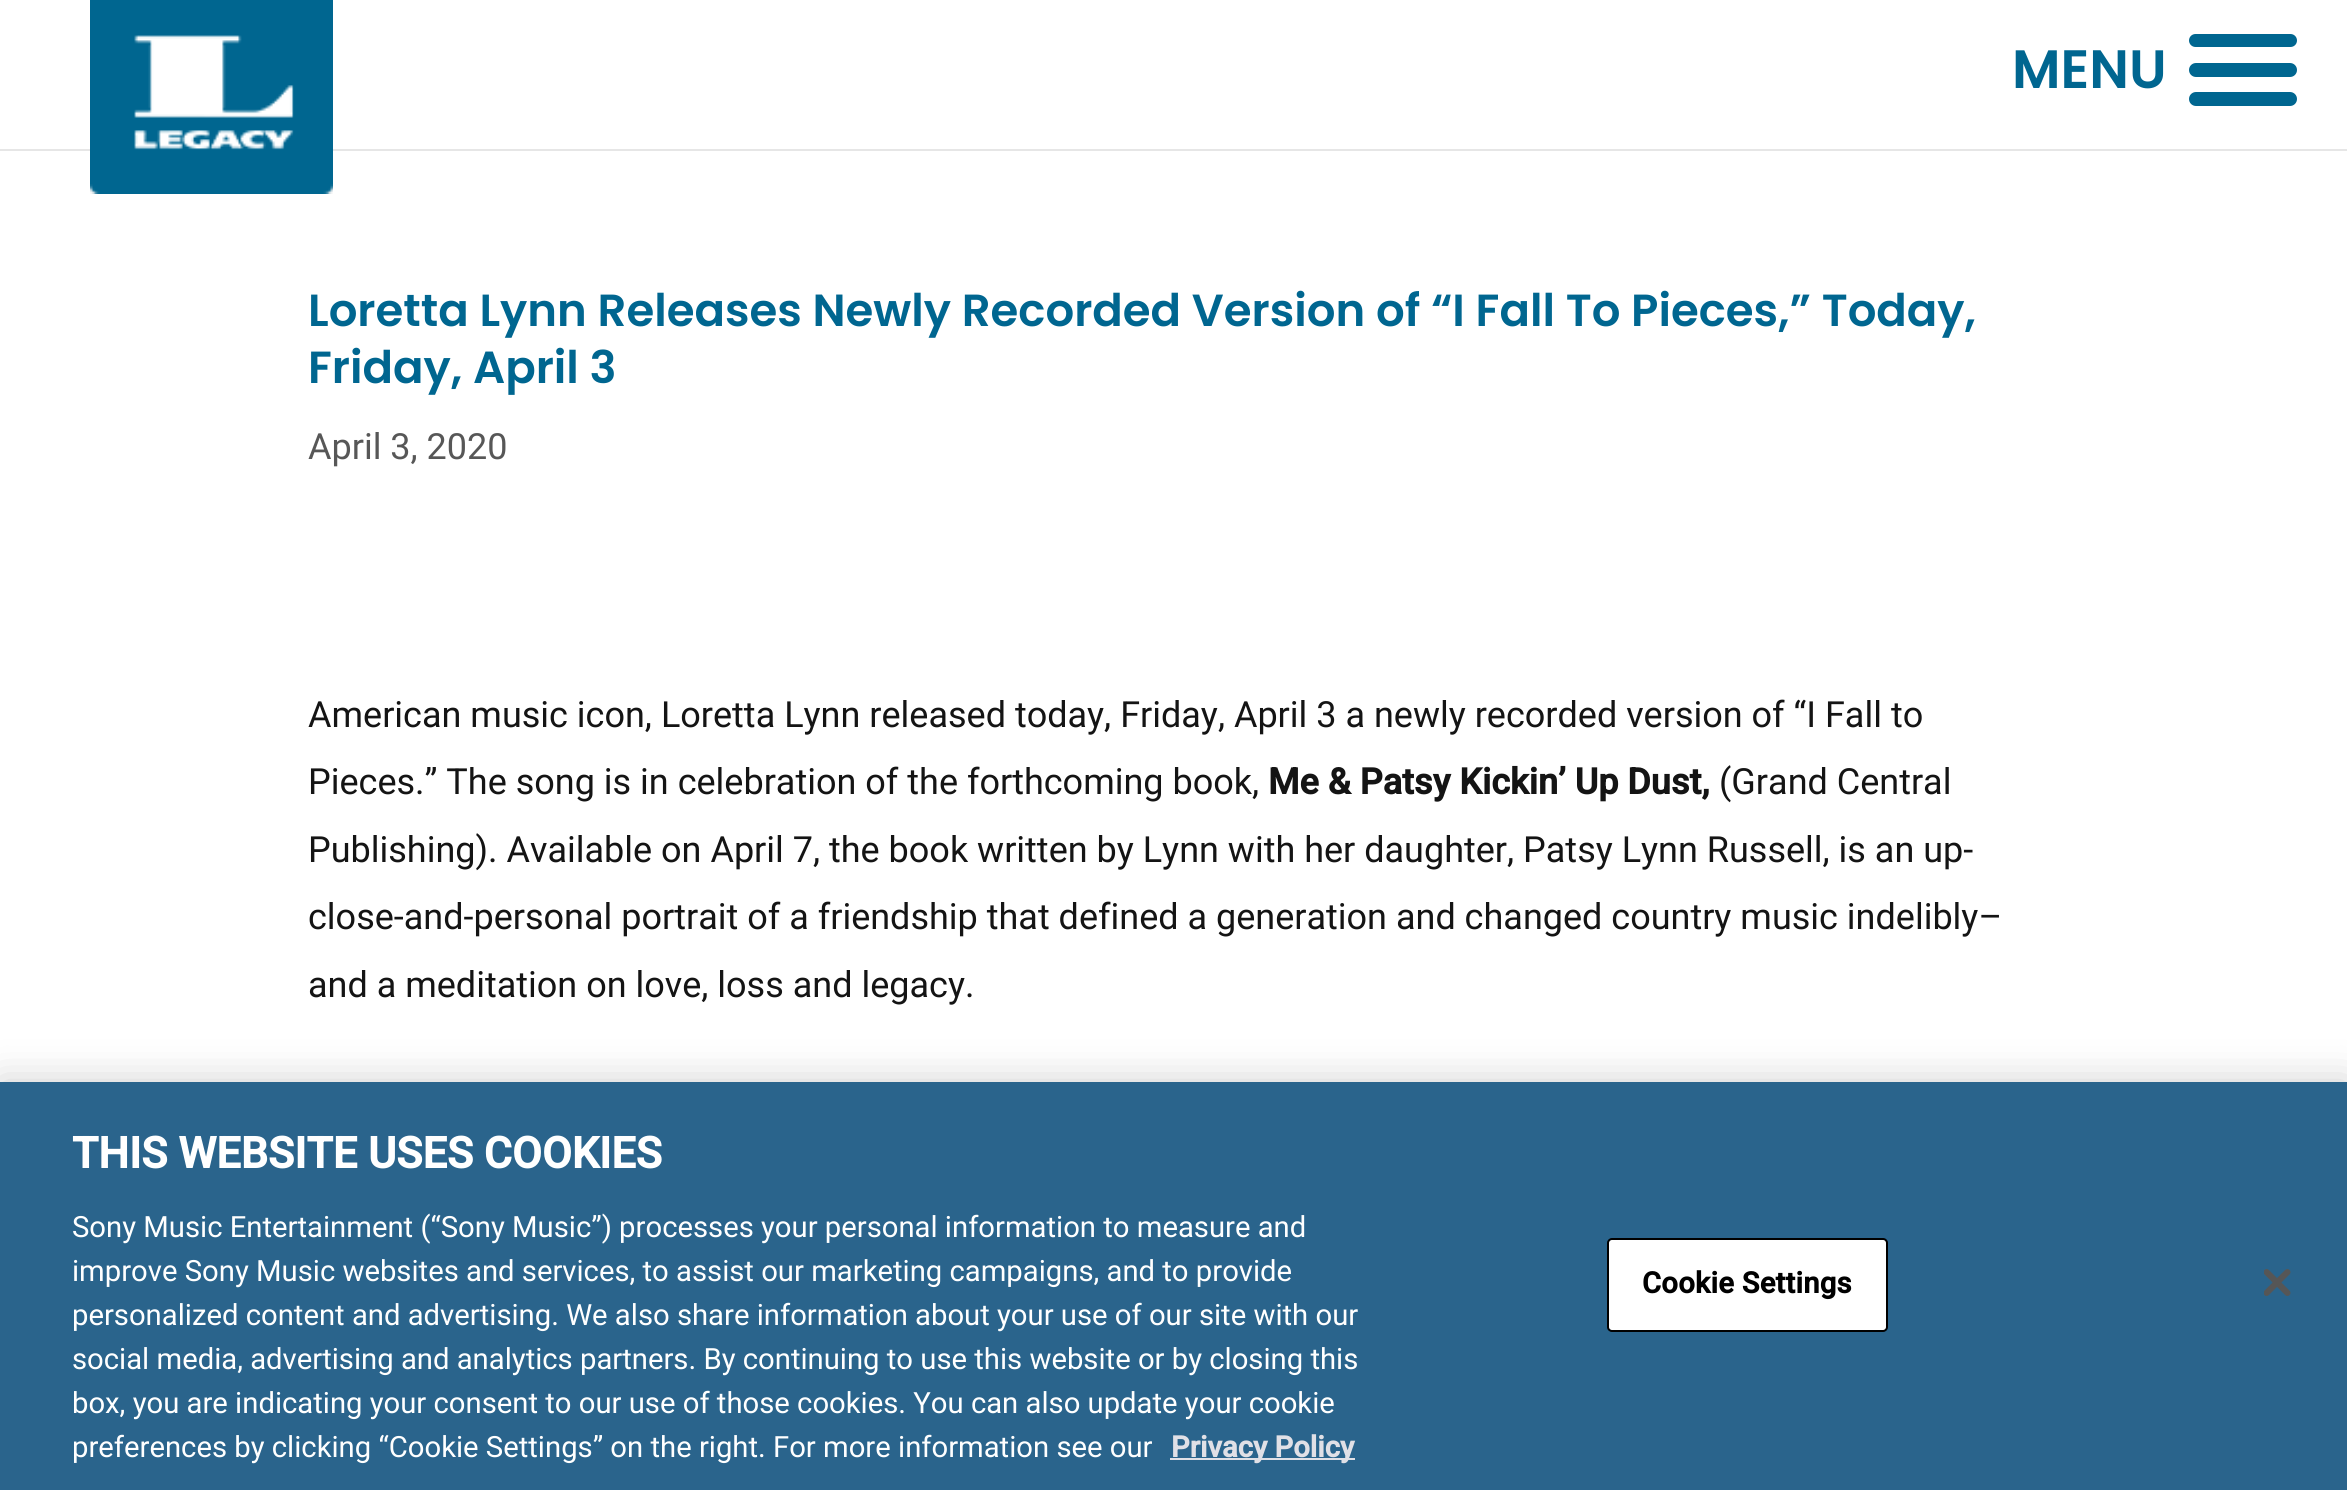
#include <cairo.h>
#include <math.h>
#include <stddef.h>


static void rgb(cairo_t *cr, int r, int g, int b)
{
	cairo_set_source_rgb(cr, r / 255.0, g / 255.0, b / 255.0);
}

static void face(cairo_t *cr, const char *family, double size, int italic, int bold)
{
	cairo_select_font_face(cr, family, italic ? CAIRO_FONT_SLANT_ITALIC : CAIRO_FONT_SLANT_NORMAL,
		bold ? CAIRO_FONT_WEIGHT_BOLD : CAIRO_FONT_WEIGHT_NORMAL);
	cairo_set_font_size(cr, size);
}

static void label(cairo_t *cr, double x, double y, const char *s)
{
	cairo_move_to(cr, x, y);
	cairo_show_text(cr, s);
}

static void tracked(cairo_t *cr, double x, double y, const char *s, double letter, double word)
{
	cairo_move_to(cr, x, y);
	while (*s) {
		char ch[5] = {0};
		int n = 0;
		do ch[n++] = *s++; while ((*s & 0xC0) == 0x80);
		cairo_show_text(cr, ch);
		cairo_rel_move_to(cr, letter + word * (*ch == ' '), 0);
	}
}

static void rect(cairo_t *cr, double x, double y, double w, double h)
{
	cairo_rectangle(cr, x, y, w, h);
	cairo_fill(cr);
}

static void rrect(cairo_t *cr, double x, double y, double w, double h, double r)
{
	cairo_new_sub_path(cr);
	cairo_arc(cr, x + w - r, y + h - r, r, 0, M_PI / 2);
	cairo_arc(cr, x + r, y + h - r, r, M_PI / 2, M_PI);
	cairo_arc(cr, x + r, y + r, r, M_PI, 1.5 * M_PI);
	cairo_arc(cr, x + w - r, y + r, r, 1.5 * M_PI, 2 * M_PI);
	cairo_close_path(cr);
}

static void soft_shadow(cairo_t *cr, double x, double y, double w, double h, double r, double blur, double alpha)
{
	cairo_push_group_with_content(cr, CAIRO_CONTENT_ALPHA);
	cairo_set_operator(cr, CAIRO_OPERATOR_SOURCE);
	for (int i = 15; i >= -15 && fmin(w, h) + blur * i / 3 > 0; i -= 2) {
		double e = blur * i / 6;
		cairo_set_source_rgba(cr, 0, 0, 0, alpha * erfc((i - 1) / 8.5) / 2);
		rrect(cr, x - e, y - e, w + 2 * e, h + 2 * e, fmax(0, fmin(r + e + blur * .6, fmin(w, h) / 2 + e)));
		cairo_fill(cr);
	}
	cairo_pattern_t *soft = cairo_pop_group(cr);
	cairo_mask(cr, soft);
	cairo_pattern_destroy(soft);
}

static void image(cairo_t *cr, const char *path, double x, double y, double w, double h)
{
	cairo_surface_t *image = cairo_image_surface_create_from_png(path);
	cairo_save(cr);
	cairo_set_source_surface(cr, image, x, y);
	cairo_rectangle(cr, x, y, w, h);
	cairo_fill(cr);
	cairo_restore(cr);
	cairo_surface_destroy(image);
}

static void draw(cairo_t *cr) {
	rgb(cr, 255, 255, 255);
	cairo_paint(cr);
	rgb(cr, 230, 230, 230);
	rect(cr, 0, 149, 2347, 2);
	image(cr, "image0.png", 90, 0, 243, 194);
	face(cr, "Poppins SemiBold", 54, 0, 0);
	rgb(cr, 0, 102, 144);
	label(cr, 2012, 88, "MENU");
	rrect(cr, 2189, 34, 108, 13, 6.5);
	cairo_fill(cr);
	rrect(cr, 2189, 63, 108, 14, 7);
	cairo_fill(cr);
	rrect(cr, 2189, 92, 108, 14, 7);
	cairo_fill(cr);
	face(cr, "Poppins SemiBold", 45, 0, 0);
	label(cr, 308, 326, "Loretta Lynn Releases Newly Recorded Version of “I Fall To Pieces,” Today,");
	label(cr, 308, 383, "Friday, April 3");
	face(cr, "Roboto", 36, 0, 0);
	rgb(cr, 87, 87, 87);
	label(cr, 308, 459, "April 3, 2020");
	rgb(cr, 20, 20, 20);
	label(cr, 308, 727, "American music icon, Loretta Lynn released today, Friday, April 3 a newly recorded version of “I Fall to");
	label(cr, 308, 794, "Pieces.” The song is in celebration of the forthcoming book,");
	face(cr, "Roboto", 36, 0, 1);
	label(cr, 1268, 794, "Me & Patsy Kickin’ Up Dust,");
	face(cr, "Roboto", 36, 0, 0);
	label(cr, 1719, 794, "(Grand Central");
	label(cr, 308, 862, "Publishing). Available on April 7, the book written by Lynn with her daughter, Patsy Lynn Russell, is an up-");
	label(cr, 308, 929, "close-and-personal portrait of a friendship that defined a generation and changed country music indelibly–");
	label(cr, 308, 997, "and a meditation on love, loss and legacy.");
	rgb(cr, 0, 0, 0);
	soft_shadow(cr, 0, 1082, 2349, 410, 0, 20, 0.2);
	rgb(cr, 42, 100, 140);
	rect(cr, 0, 1082, 2347, 408);
	face(cr, "Roboto", 43.25, 0, 1);
	rgb(cr, 255, 255, 255);
	label(cr, 72, 1168, "THIS WEBSITE USES COOKIES");
	face(cr, "Roboto", 29.25, 0, 0);
	label(cr, 72, 1237, "Sony Music Entertainment (“Sony Music”) processes your personal information to measure and");
	label(cr, 72, 1281, "improve Sony Music websites and services, to assist our marketing campaigns, and to provide");
	label(cr, 72, 1325, "personalized content and advertising. We also share information about your use of our site with our");
	label(cr, 72, 1369, "social media, advertising and analytics partners. By continuing to use this website or by closing this");
	label(cr, 72, 1413, "box, you are indicating your consent to our use of those cookies. You can also update your cookie");
	label(cr, 72, 1457, "preferences by clicking “Cookie Settings” on the right. For more information see our");
	rgb(cr, 224, 224, 230);
	rect(cr, 1170, 1458, 185, 2);
	face(cr, "Roboto", 29.25, 0, 1);
	label(cr, 1171, 1457, "Privacy Policy");
	rgb(cr, 255, 255, 255);
	rrect(cr, 1608, 1239, 279, 92, 4);
	cairo_fill_preserve(cr);
	rgb(cr, 0, 0, 0);
	cairo_stroke(cr);
	tracked(cr, 1642, 1293, "Cookie Settings", 0.25, 0);
	image(cr, "image1.png", 2264, 1269, 27, 27);
}

int main(void) {
	cairo_surface_t *surface = cairo_image_surface_create(CAIRO_FORMAT_RGB24, 2347, 1490);
	cairo_t *cr = cairo_create(surface);
	cairo_font_options_t *options = cairo_font_options_create();
	cairo_font_options_set_hint_metrics(options, CAIRO_HINT_METRICS_OFF);
	cairo_font_options_set_hint_style(options, CAIRO_HINT_STYLE_NONE);
	cairo_set_font_options(cr, options);
	cairo_set_miter_limit(cr, 4);
	draw(cr);
	cairo_surface_write_to_png(surface, "render.png");
	cairo_font_options_destroy(options);
	cairo_destroy(cr);
	cairo_surface_destroy(surface);
	return 0;
}
